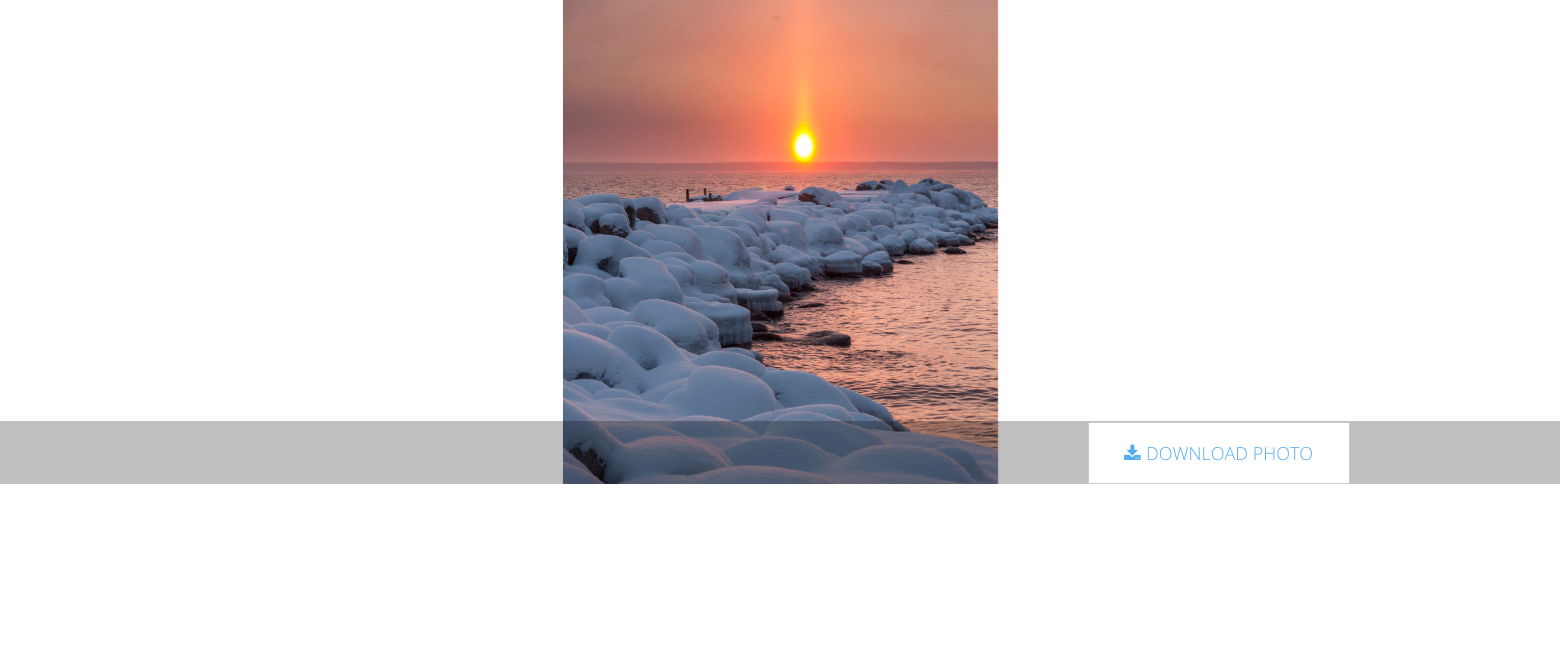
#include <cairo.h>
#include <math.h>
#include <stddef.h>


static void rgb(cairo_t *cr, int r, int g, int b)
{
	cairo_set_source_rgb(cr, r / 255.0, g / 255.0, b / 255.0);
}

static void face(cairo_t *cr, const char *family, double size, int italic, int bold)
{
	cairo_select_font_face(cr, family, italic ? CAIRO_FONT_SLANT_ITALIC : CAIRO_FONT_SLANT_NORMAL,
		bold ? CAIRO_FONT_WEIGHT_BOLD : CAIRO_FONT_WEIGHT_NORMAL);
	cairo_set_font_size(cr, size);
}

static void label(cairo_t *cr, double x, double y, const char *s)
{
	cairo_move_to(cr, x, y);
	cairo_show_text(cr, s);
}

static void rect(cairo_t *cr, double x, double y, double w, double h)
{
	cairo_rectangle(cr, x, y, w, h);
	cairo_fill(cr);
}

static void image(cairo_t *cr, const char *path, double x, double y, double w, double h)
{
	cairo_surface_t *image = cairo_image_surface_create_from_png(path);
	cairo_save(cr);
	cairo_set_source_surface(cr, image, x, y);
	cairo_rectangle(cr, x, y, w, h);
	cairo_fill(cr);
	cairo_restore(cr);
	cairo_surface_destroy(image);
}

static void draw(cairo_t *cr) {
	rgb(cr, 255, 255, 255);
	cairo_paint(cr);
	image(cr, "image0.png", 562, 0, 437, 484);
	cairo_set_source_rgba(cr, 0, 0, 0, 0.25);
	rect(cr, 0, 421, 1560, 63);
	rgb(cr, 255, 255, 255);
	cairo_rectangle(cr, 1088.5, 422.5, 261, 61);
	cairo_fill_preserve(cr);
	rgb(cr, 204, 204, 204);
	cairo_set_line_width(cr, 1);
	cairo_stroke(cr);
	image(cr, "image1.png", 1124, 444, 17, 16);
	face(cr, "Open Sans Light", 18, 0, 0);
	rgb(cr, 85, 172, 238);
	label(cr, 1146, 460, "DOWNLOAD PHOTO");
}

int main(void) {
	cairo_surface_t *surface = cairo_image_surface_create(CAIRO_FORMAT_RGB24, 1560, 652);
	cairo_t *cr = cairo_create(surface);
	cairo_font_options_t *options = cairo_font_options_create();
	cairo_font_options_set_hint_metrics(options, CAIRO_HINT_METRICS_OFF);
	cairo_font_options_set_hint_style(options, CAIRO_HINT_STYLE_NONE);
	cairo_set_font_options(cr, options);
	cairo_set_miter_limit(cr, 4);
	draw(cr);
	cairo_surface_write_to_png(surface, "render.png");
	cairo_font_options_destroy(options);
	cairo_destroy(cr);
	cairo_surface_destroy(surface);
	return 0;
}
